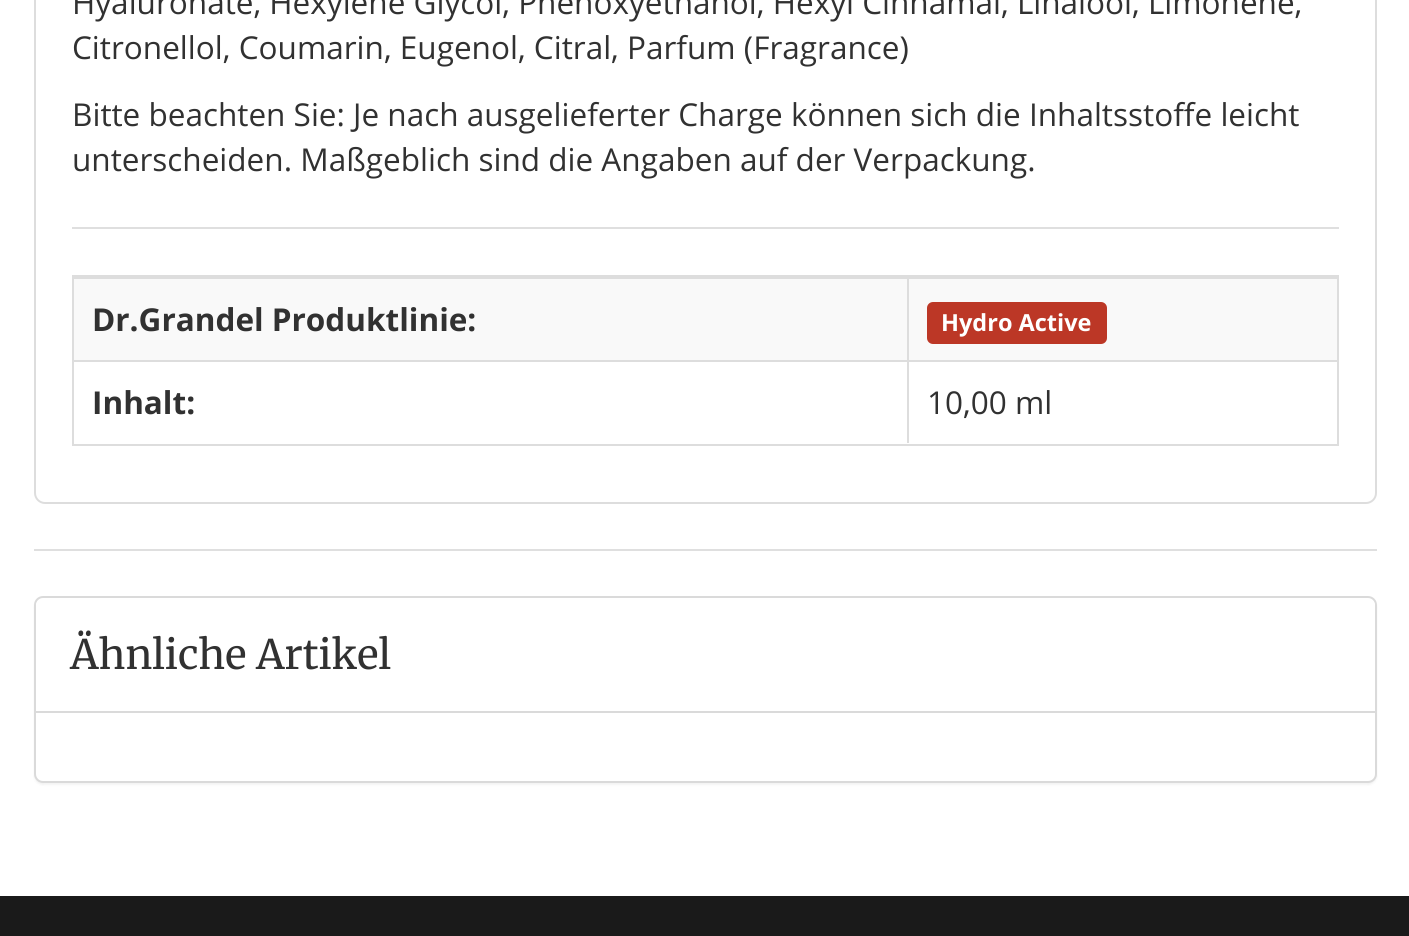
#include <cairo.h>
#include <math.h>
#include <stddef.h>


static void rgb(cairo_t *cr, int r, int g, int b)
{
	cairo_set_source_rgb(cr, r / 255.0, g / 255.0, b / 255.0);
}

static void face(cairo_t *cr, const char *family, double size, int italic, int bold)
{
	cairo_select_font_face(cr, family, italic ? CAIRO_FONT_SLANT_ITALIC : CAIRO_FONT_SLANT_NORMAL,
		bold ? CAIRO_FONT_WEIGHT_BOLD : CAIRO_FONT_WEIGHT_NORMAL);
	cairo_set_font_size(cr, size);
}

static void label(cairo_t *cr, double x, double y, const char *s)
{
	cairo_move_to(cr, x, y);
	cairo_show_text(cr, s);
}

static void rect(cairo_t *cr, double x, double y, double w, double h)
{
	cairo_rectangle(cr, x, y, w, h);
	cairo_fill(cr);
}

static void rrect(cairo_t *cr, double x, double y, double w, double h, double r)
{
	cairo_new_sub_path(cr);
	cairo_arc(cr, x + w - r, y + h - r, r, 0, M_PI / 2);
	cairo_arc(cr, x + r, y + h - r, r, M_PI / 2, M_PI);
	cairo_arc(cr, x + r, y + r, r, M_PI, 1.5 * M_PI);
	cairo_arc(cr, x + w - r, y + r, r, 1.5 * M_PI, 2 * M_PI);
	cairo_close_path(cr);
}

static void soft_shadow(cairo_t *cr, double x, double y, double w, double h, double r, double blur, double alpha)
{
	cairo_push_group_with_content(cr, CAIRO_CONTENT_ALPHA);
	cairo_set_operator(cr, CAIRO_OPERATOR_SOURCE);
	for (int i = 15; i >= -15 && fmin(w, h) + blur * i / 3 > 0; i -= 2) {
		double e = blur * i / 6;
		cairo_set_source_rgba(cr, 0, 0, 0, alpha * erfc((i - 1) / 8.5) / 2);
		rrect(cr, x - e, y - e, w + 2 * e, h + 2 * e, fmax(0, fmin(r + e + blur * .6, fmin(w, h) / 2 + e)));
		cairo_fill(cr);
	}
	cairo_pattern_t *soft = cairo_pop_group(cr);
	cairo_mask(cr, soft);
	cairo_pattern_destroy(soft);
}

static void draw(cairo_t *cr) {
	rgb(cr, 255, 255, 255);
	cairo_paint(cr);
	rgb(cr, 221, 221, 221);
	cairo_set_fill_rule(cr, CAIRO_FILL_RULE_EVEN_ODD);
	cairo_new_path(cr);
	cairo_move_to(cr, 34, -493);
	cairo_line_to(cr, 1377, -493);
	cairo_line_to(cr, 1377, 493);
	cairo_curve_to(cr, 1377, 499, 1372, 504, 1366, 504);
	cairo_line_to(cr, 45, 504);
	cairo_curve_to(cr, 39, 504, 34, 499, 34, 493);
	cairo_close_path(cr);
	cairo_move_to(cr, 36, -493);
	cairo_line_to(cr, 1375, -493);
	cairo_line_to(cr, 1375, 493);
	cairo_curve_to(cr, 1375, 498, 1371, 502, 1366, 502);
	cairo_line_to(cr, 45, 502);
	cairo_curve_to(cr, 40, 502, 36, 498, 36, 493);
	cairo_close_path(cr);
	cairo_fill(cr);
	face(cr, "Open Sans", 31.5, 0, 0);
	rgb(cr, 49, 49, 49);
	label(cr, 72, 14, "Hyaluronate, Hexylene Glycol, Phenoxyethanol, Hexyl Cinnamal, Linalool, Limonene,");
	label(cr, 72, 59, "Citronellol, Coumarin, Eugenol, Citral, Parfum (Fragrance)");
	label(cr, 72, 126, "Bitte beachten Sie: Je nach ausgelieferter Charge können sich die Inhaltsstoffe leicht");
	label(cr, 72, 171, "unterscheiden. Maßgeblich sind die Angaben auf der Verpackung.");
	rgb(cr, 223, 223, 223);
	rect(cr, 72, 227, 1267, 2);
	cairo_rectangle(cr, 73, 276, 1265, 169);
	rgb(cr, 221, 221, 221);
	cairo_stroke(cr);
	rgb(cr, 249, 249, 249);
	rect(cr, 74, 279, 1263, 81);
	rgb(cr, 221, 221, 221);
	rect(cr, 907, 277, 430, 2);
	rect(cr, 907, 360, 430, 2);
	rect(cr, 907, 360, 2, 83);
	rect(cr, 74, 360, 835, 2);
	rect(cr, 907, 277, 2, 85);
	rect(cr, 74, 277, 835, 2);
	face(cr, "Open Sans", 31.5, 0, 1);
	rgb(cr, 49, 49, 49);
	label(cr, 92, 331, "Dr.Grandel Produktlinie:");
	rgb(cr, 188, 55, 38);
	rrect(cr, 927, 302, 180, 42, 6);
	cairo_fill(cr);
	face(cr, "Open Sans", 23.5, 0, 1);
	rgb(cr, 255, 255, 255);
	label(cr, 941, 331, "Hydro Active");
	face(cr, "Open Sans", 31.5, 0, 1);
	rgb(cr, 49, 49, 49);
	label(cr, 92, 414, "Inhalt:");
	face(cr, "Open Sans", 31.5, 0, 0);
	label(cr, 927, 414, "10,00 ml");
	rgb(cr, 223, 223, 223);
	rect(cr, 34, 549, 1343, 2);
	rgb(cr, 0, 0, 0);
	soft_shadow(cr, 34, 599, 1343, 186, 9, 1, 0.05);
	rgb(cr, 255, 255, 255);
	rrect(cr, 35, 597, 1341, 185, 8);
	cairo_fill_preserve(cr);
	rgb(cr, 218, 218, 218);
	cairo_stroke(cr);
	rgb(cr, 255, 255, 255);
	cairo_new_path(cr);
	cairo_move_to(cr, 43, 599);
	cairo_line_to(cr, 1368, 599);
	cairo_curve_to(cr, 1372, 599, 1375, 602, 1375, 606);
	cairo_line_to(cr, 1375, 713);
	cairo_line_to(cr, 36, 713);
	cairo_line_to(cr, 36, 606);
	cairo_curve_to(cr, 36, 602, 39, 599, 43, 599);
	cairo_close_path(cr);
	cairo_fill(cr);
	rgb(cr, 218, 218, 218);
	rect(cr, 36, 711, 1339, 2);
	face(cr, "Merriweather", 40.5, 0, 0);
	rgb(cr, 49, 49, 49);
	label(cr, 70, 669, "Ähnliche Artikel");
	rgb(cr, 26, 26, 26);
	rect(cr, 0, 896, 1409, 40);
}

int main(void) {
	cairo_surface_t *surface = cairo_image_surface_create(CAIRO_FORMAT_RGB24, 1409, 936);
	cairo_t *cr = cairo_create(surface);
	cairo_font_options_t *options = cairo_font_options_create();
	cairo_font_options_set_hint_metrics(options, CAIRO_HINT_METRICS_OFF);
	cairo_font_options_set_hint_style(options, CAIRO_HINT_STYLE_NONE);
	cairo_set_font_options(cr, options);
	cairo_set_miter_limit(cr, 4);
	draw(cr);
	cairo_surface_write_to_png(surface, "render.png");
	cairo_font_options_destroy(options);
	cairo_destroy(cr);
	cairo_surface_destroy(surface);
	return 0;
}
